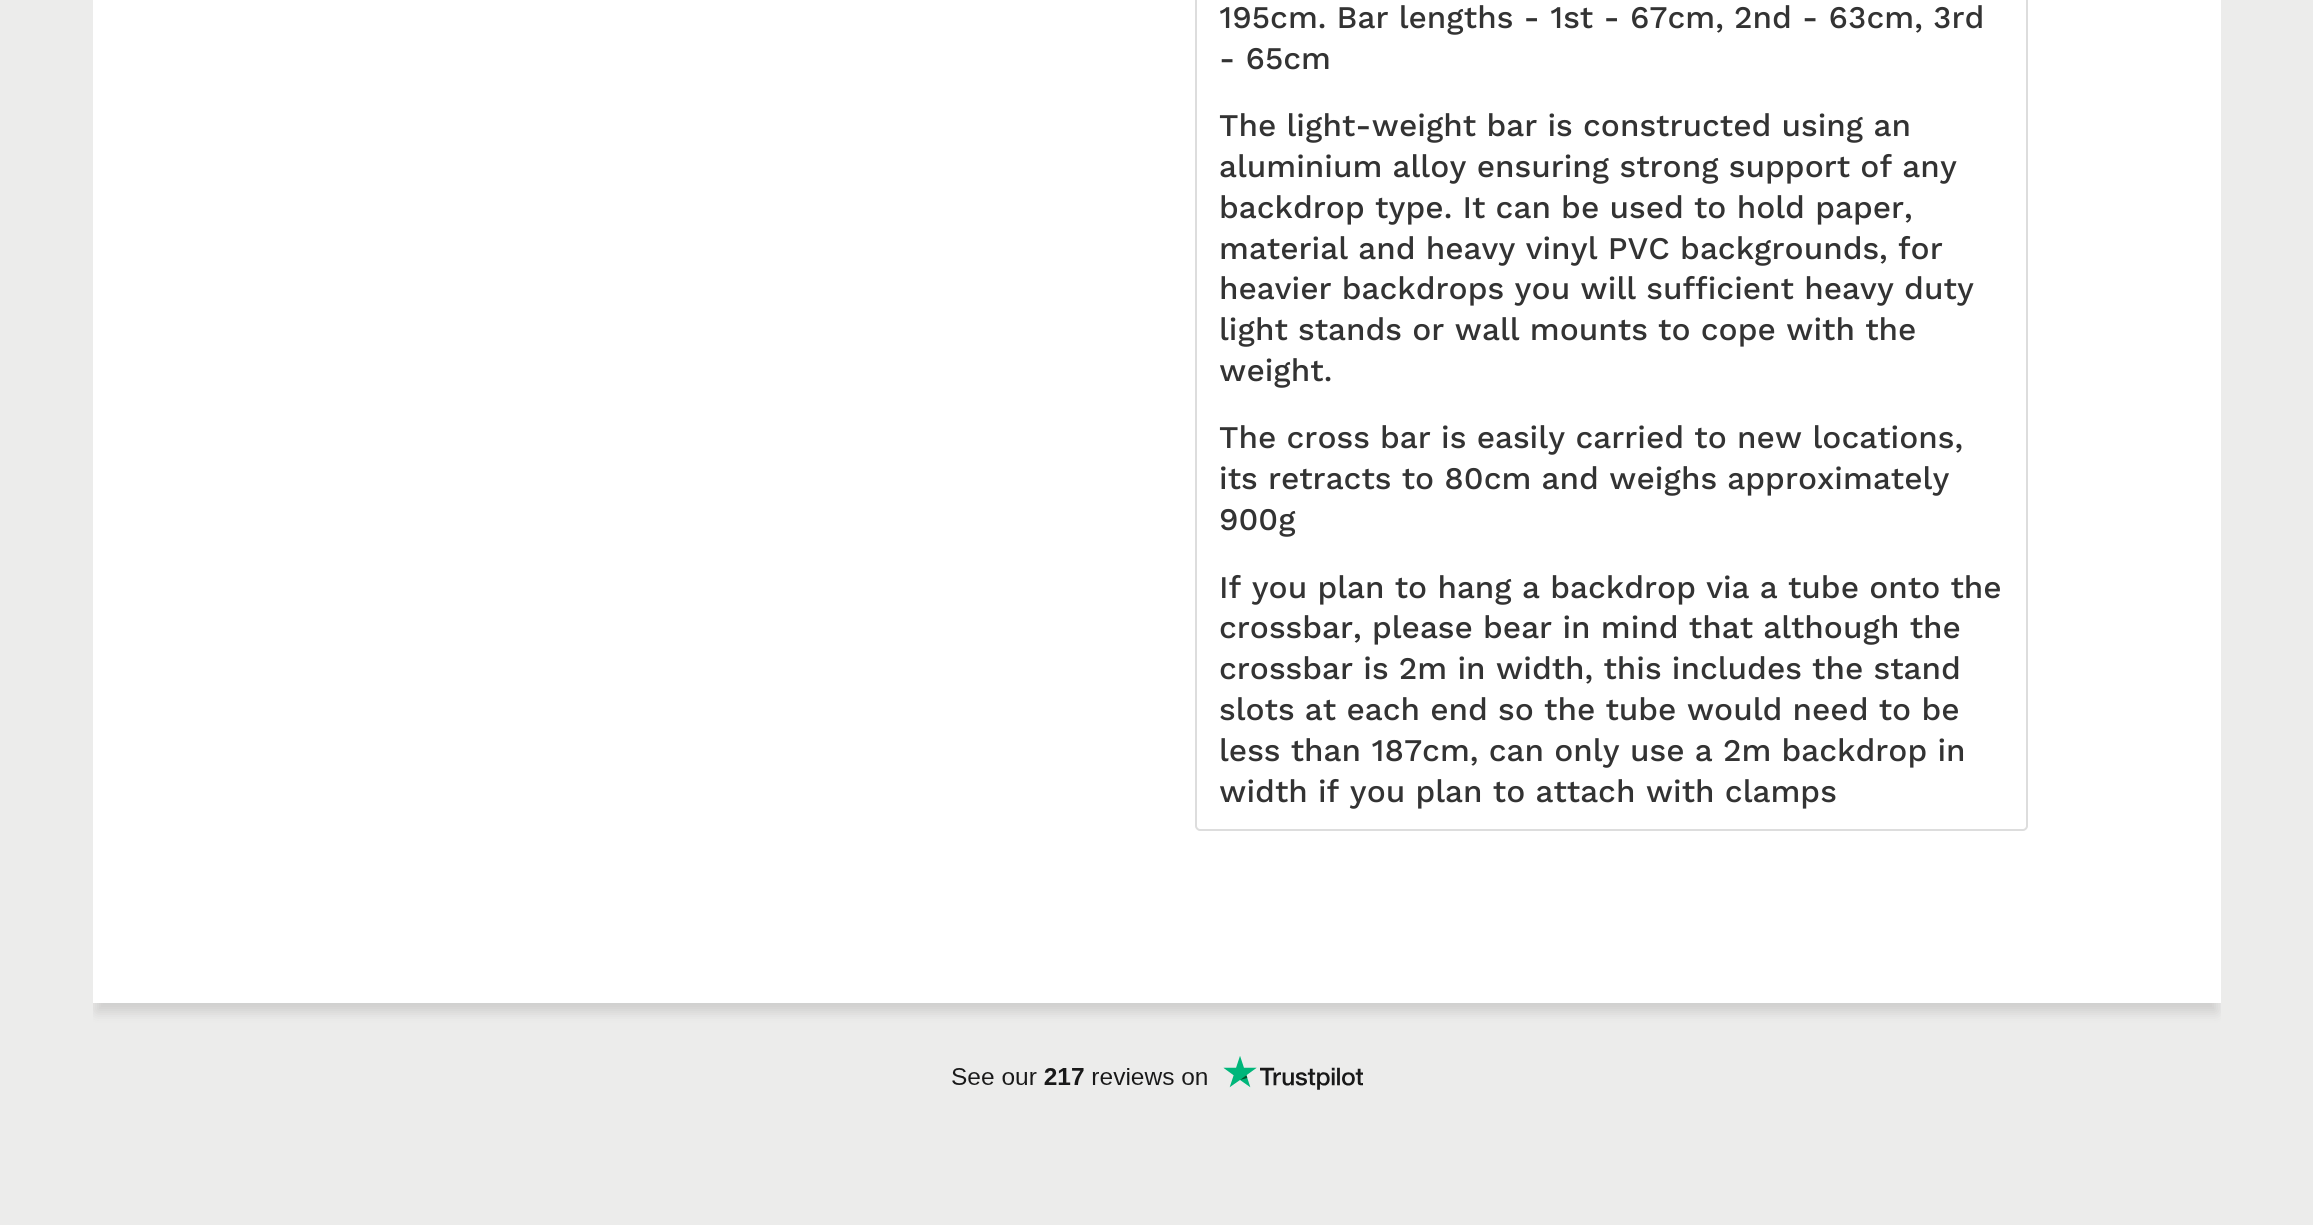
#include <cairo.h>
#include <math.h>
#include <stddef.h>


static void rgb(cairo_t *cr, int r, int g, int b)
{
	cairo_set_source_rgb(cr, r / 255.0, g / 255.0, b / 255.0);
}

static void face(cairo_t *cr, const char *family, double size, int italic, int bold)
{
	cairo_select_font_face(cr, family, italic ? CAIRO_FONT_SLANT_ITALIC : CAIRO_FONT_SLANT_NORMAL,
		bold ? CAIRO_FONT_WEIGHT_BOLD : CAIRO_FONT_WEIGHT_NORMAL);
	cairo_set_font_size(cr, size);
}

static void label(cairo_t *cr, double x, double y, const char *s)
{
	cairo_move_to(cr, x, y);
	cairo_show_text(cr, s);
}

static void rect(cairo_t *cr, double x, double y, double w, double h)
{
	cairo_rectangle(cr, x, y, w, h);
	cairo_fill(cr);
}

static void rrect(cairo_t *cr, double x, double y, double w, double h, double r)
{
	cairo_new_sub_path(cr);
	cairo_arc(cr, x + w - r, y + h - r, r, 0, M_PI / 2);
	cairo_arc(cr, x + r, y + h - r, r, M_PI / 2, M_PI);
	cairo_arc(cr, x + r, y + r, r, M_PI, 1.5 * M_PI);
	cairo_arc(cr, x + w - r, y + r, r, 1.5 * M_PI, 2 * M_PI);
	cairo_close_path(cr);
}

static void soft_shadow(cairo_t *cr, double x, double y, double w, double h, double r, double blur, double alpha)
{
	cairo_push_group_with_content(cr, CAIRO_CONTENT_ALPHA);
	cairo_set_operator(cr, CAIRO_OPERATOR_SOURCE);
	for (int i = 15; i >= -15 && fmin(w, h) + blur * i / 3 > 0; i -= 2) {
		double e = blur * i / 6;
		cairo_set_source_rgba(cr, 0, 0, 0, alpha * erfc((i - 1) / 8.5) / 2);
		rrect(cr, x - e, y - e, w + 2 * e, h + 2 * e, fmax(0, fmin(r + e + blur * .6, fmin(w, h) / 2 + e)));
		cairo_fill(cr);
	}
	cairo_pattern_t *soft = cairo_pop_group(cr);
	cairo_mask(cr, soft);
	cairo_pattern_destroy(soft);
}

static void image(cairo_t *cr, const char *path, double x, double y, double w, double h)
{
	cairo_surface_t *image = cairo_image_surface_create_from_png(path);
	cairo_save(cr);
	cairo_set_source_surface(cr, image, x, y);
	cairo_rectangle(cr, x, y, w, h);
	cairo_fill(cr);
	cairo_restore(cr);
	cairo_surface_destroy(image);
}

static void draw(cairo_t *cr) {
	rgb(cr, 236, 236, 235);
	cairo_paint(cr);
	cairo_save(cr);
	cairo_rectangle(cr, 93, 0, 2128, 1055);
	cairo_clip(cr);
	rgb(cr, 142, 140, 140);
	soft_shadow(cr, 96, -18, 2121, 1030, 0, 6, 0.32);
	cairo_restore(cr);
	rgb(cr, 255, 255, 255);
	rect(cr, 93, 0, 2128, 1003);
	cairo_new_path(cr);
	cairo_move_to(cr, 1196, -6);
	cairo_line_to(cr, 2023, -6);
	cairo_curve_to(cr, 2025, -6, 2027, -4, 2027, -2);
	cairo_line_to(cr, 2027, 826);
	cairo_curve_to(cr, 2027, 828, 2025, 830, 2023, 830);
	cairo_line_to(cr, 1200, 830);
	cairo_curve_to(cr, 1198, 830, 1196, 828, 1196, 826);
	cairo_close_path(cr);
	rgb(cr, 221, 221, 221);
	cairo_stroke(cr);
	face(cr, "Work Sans Medium", 31.5, 0, 0);
	rgb(cr, 51, 51, 51);
	label(cr, 1219, 28, "195cm. Bar lengths - 1st - 67cm, 2nd - 63cm, 3rd");
	label(cr, 1219, 69, "- 65cm");
	label(cr, 1219, 136, "The light-weight bar is constructed using an");
	label(cr, 1219, 177, "aluminium alloy ensuring strong support of any");
	label(cr, 1219, 218, "backdrop type. It can be used to hold paper,");
	label(cr, 1219, 259, "material and heavy vinyl PVC backgrounds, for");
	label(cr, 1219, 299, "heavier backdrops you will sufficient heavy duty");
	label(cr, 1219, 340, "light stands or wall mounts to cope with the");
	label(cr, 1219, 381, "weight.");
	label(cr, 1219, 448, "The cross bar is easily carried to new locations,");
	label(cr, 1219, 489, "its retracts to 80cm and weighs approximately");
	label(cr, 1219, 530, "900g");
	label(cr, 1219, 598, "If you plan to hang a backdrop via a tube onto the");
	label(cr, 1219, 638, "crossbar, please bear in mind that although the");
	label(cr, 1219, 679, "crossbar is 2m in width, this includes the stand");
	label(cr, 1219, 720, "slots at each end so the tube would need to be");
	label(cr, 1219, 761, "less than 187cm, can only use a 2m backdrop in");
	label(cr, 1219, 802, "width if you plan to attach with clamps");
	image(cr, "image0.png", 952, 1056, 411, 34);
}

int main(void) {
	cairo_surface_t *surface = cairo_image_surface_create(CAIRO_FORMAT_RGB24, 2313, 1225);
	cairo_t *cr = cairo_create(surface);
	cairo_font_options_t *options = cairo_font_options_create();
	cairo_font_options_set_hint_metrics(options, CAIRO_HINT_METRICS_OFF);
	cairo_font_options_set_hint_style(options, CAIRO_HINT_STYLE_NONE);
	cairo_set_font_options(cr, options);
	cairo_set_miter_limit(cr, 4);
	draw(cr);
	cairo_surface_write_to_png(surface, "render.png");
	cairo_font_options_destroy(options);
	cairo_destroy(cr);
	cairo_surface_destroy(surface);
	return 0;
}
